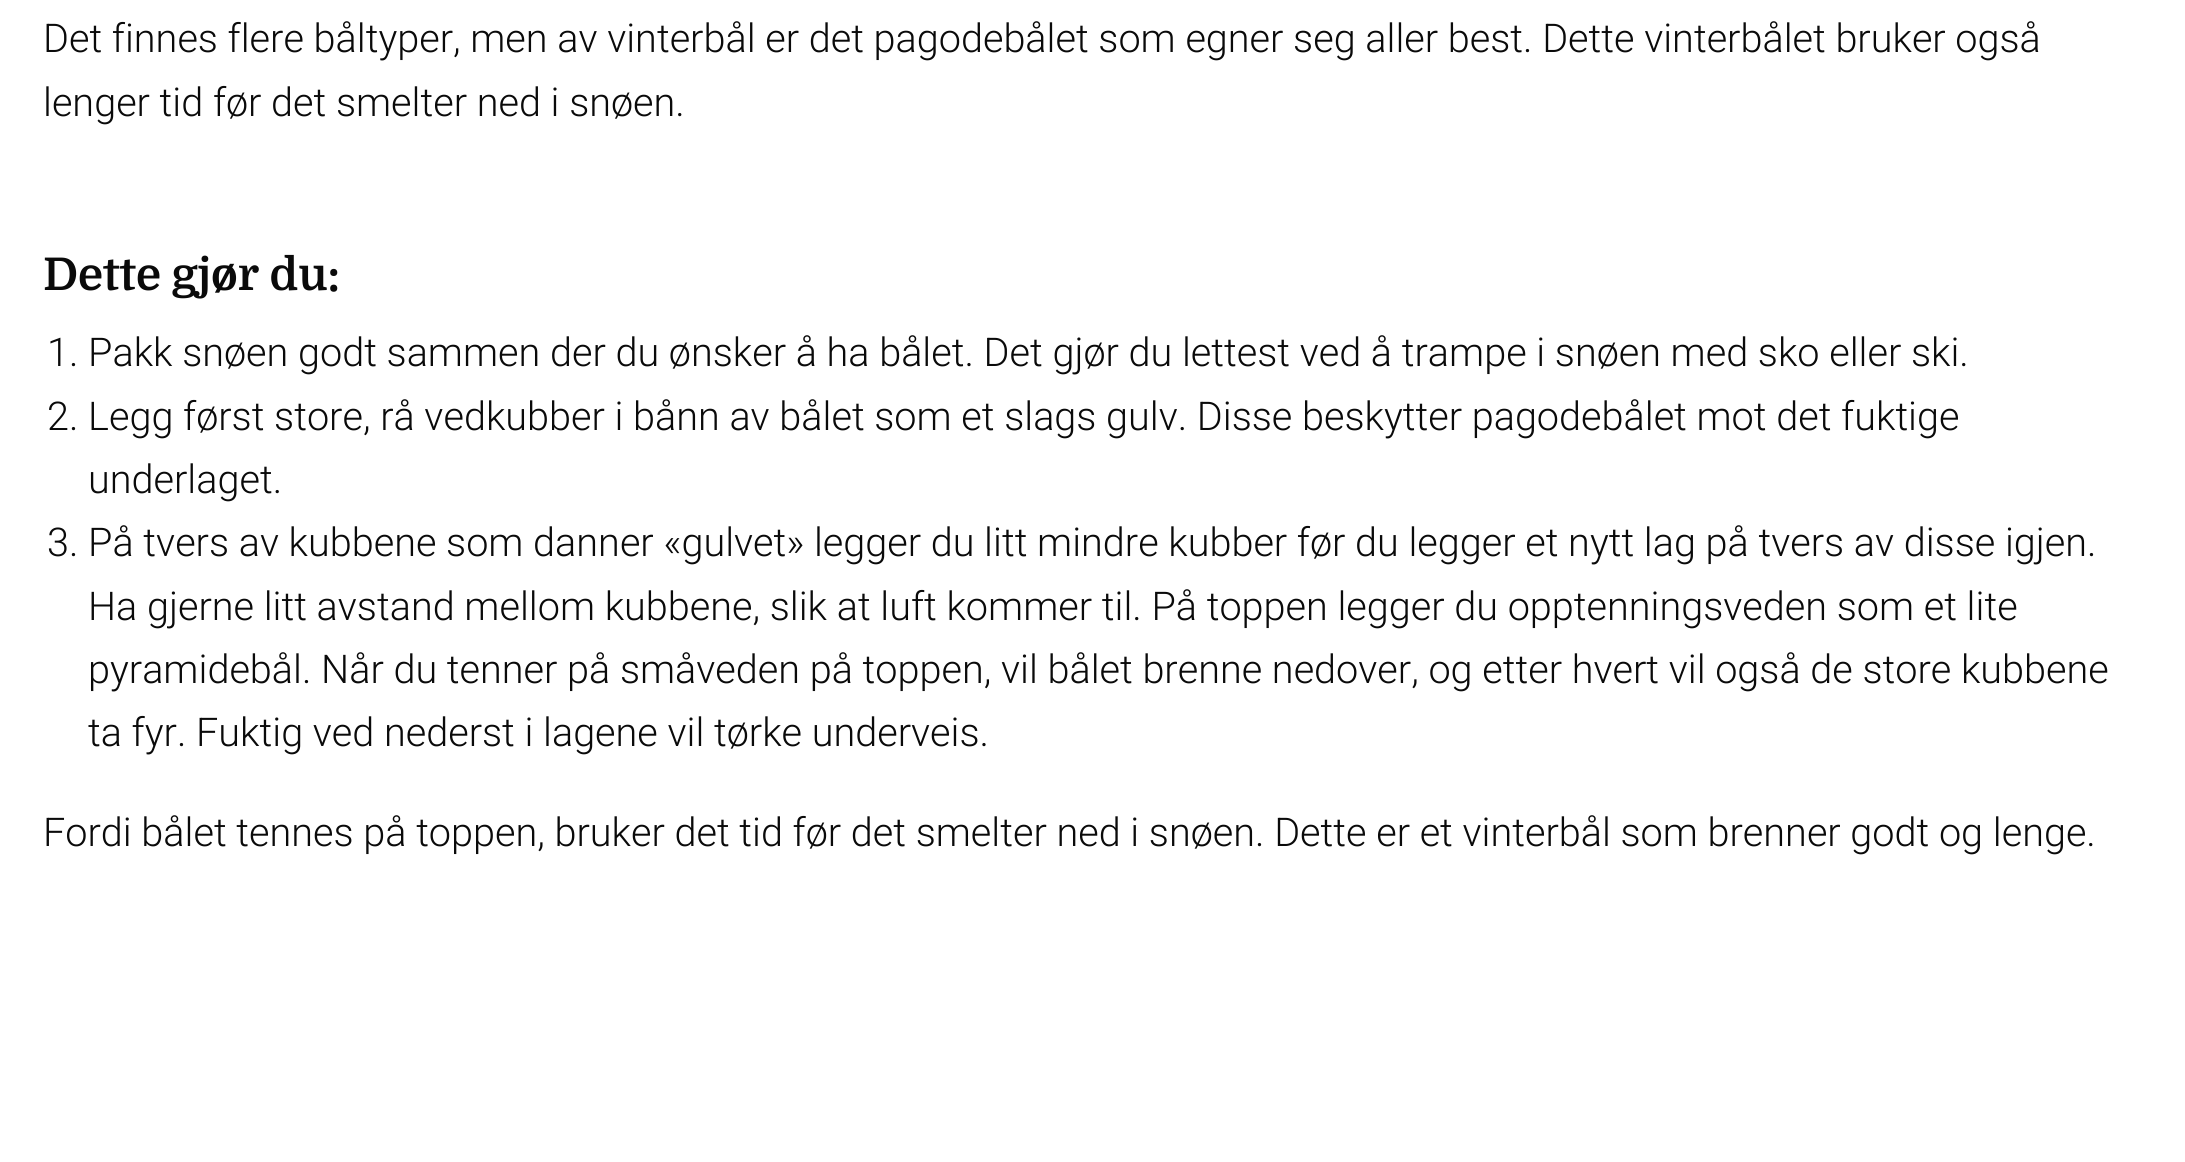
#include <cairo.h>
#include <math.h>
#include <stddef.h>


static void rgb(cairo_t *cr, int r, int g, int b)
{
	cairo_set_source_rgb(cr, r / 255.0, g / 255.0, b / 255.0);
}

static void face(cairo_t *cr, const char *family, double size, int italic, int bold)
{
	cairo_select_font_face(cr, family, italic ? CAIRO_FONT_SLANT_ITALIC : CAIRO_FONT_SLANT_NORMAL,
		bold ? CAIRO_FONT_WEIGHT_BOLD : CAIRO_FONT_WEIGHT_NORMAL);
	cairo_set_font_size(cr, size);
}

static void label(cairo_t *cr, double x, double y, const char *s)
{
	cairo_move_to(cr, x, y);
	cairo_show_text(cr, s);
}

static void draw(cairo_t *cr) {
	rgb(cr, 255, 255, 255);
	cairo_paint(cr);
	face(cr, "Roboto Light", 39.6, 0, 0);
	rgb(cr, 10, 10, 10);
	label(cr, 43, 52, "Det finnes flere båltyper, men av vinterbål er det pagodebålet som egner seg aller best. Dette vinterbålet bruker også");
	label(cr, 43, 116, "lenger tid før det smelter ned i snøen.");
	face(cr, "Domine", 45, 0, 1);
	label(cr, 43, 290, "Dette gjør du:");
	face(cr, "Roboto Light", 39.6, 0, 0);
	label(cr, 47, 366, "1. Pakk snøen godt sammen der du ønsker å ha bålet. Det gjør du lettest ved å trampe i snøen med sko eller ski.");
	label(cr, 47, 430, "2. Legg først store, rå vedkubber i bånn av bålet som et slags gulv. Disse beskytter pagodebålet mot det fuktige");
	label(cr, 88, 493, "underlaget.");
	label(cr, 47, 556, "3. På tvers av kubbene som danner «gulvet» legger du litt mindre kubber før du legger et nytt lag på tvers av disse igjen.");
	label(cr, 88, 620, "Ha gjerne litt avstand mellom kubbene, slik at luft kommer til. På toppen legger du opptenningsveden som et lite");
	label(cr, 88, 683, "pyramidebål. Når du tenner på småveden på toppen, vil bålet brenne nedover, og etter hvert vil også de store kubbene");
	label(cr, 88, 746, "ta fyr. Fuktig ved nederst i lagene vil tørke underveis.");
	label(cr, 43, 846, "Fordi bålet tennes på toppen, bruker det tid før det smelter ned i snøen. Dette er et vinterbål som brenner godt og lenge.");
}

int main(void) {
	cairo_surface_t *surface = cairo_image_surface_create(CAIRO_FORMAT_RGB24, 2185, 1162);
	cairo_t *cr = cairo_create(surface);
	cairo_font_options_t *options = cairo_font_options_create();
	cairo_font_options_set_hint_metrics(options, CAIRO_HINT_METRICS_OFF);
	cairo_font_options_set_hint_style(options, CAIRO_HINT_STYLE_NONE);
	cairo_set_font_options(cr, options);
	cairo_set_miter_limit(cr, 4);
	draw(cr);
	cairo_surface_write_to_png(surface, "render.png");
	cairo_font_options_destroy(options);
	cairo_destroy(cr);
	cairo_surface_destroy(surface);
	return 0;
}
